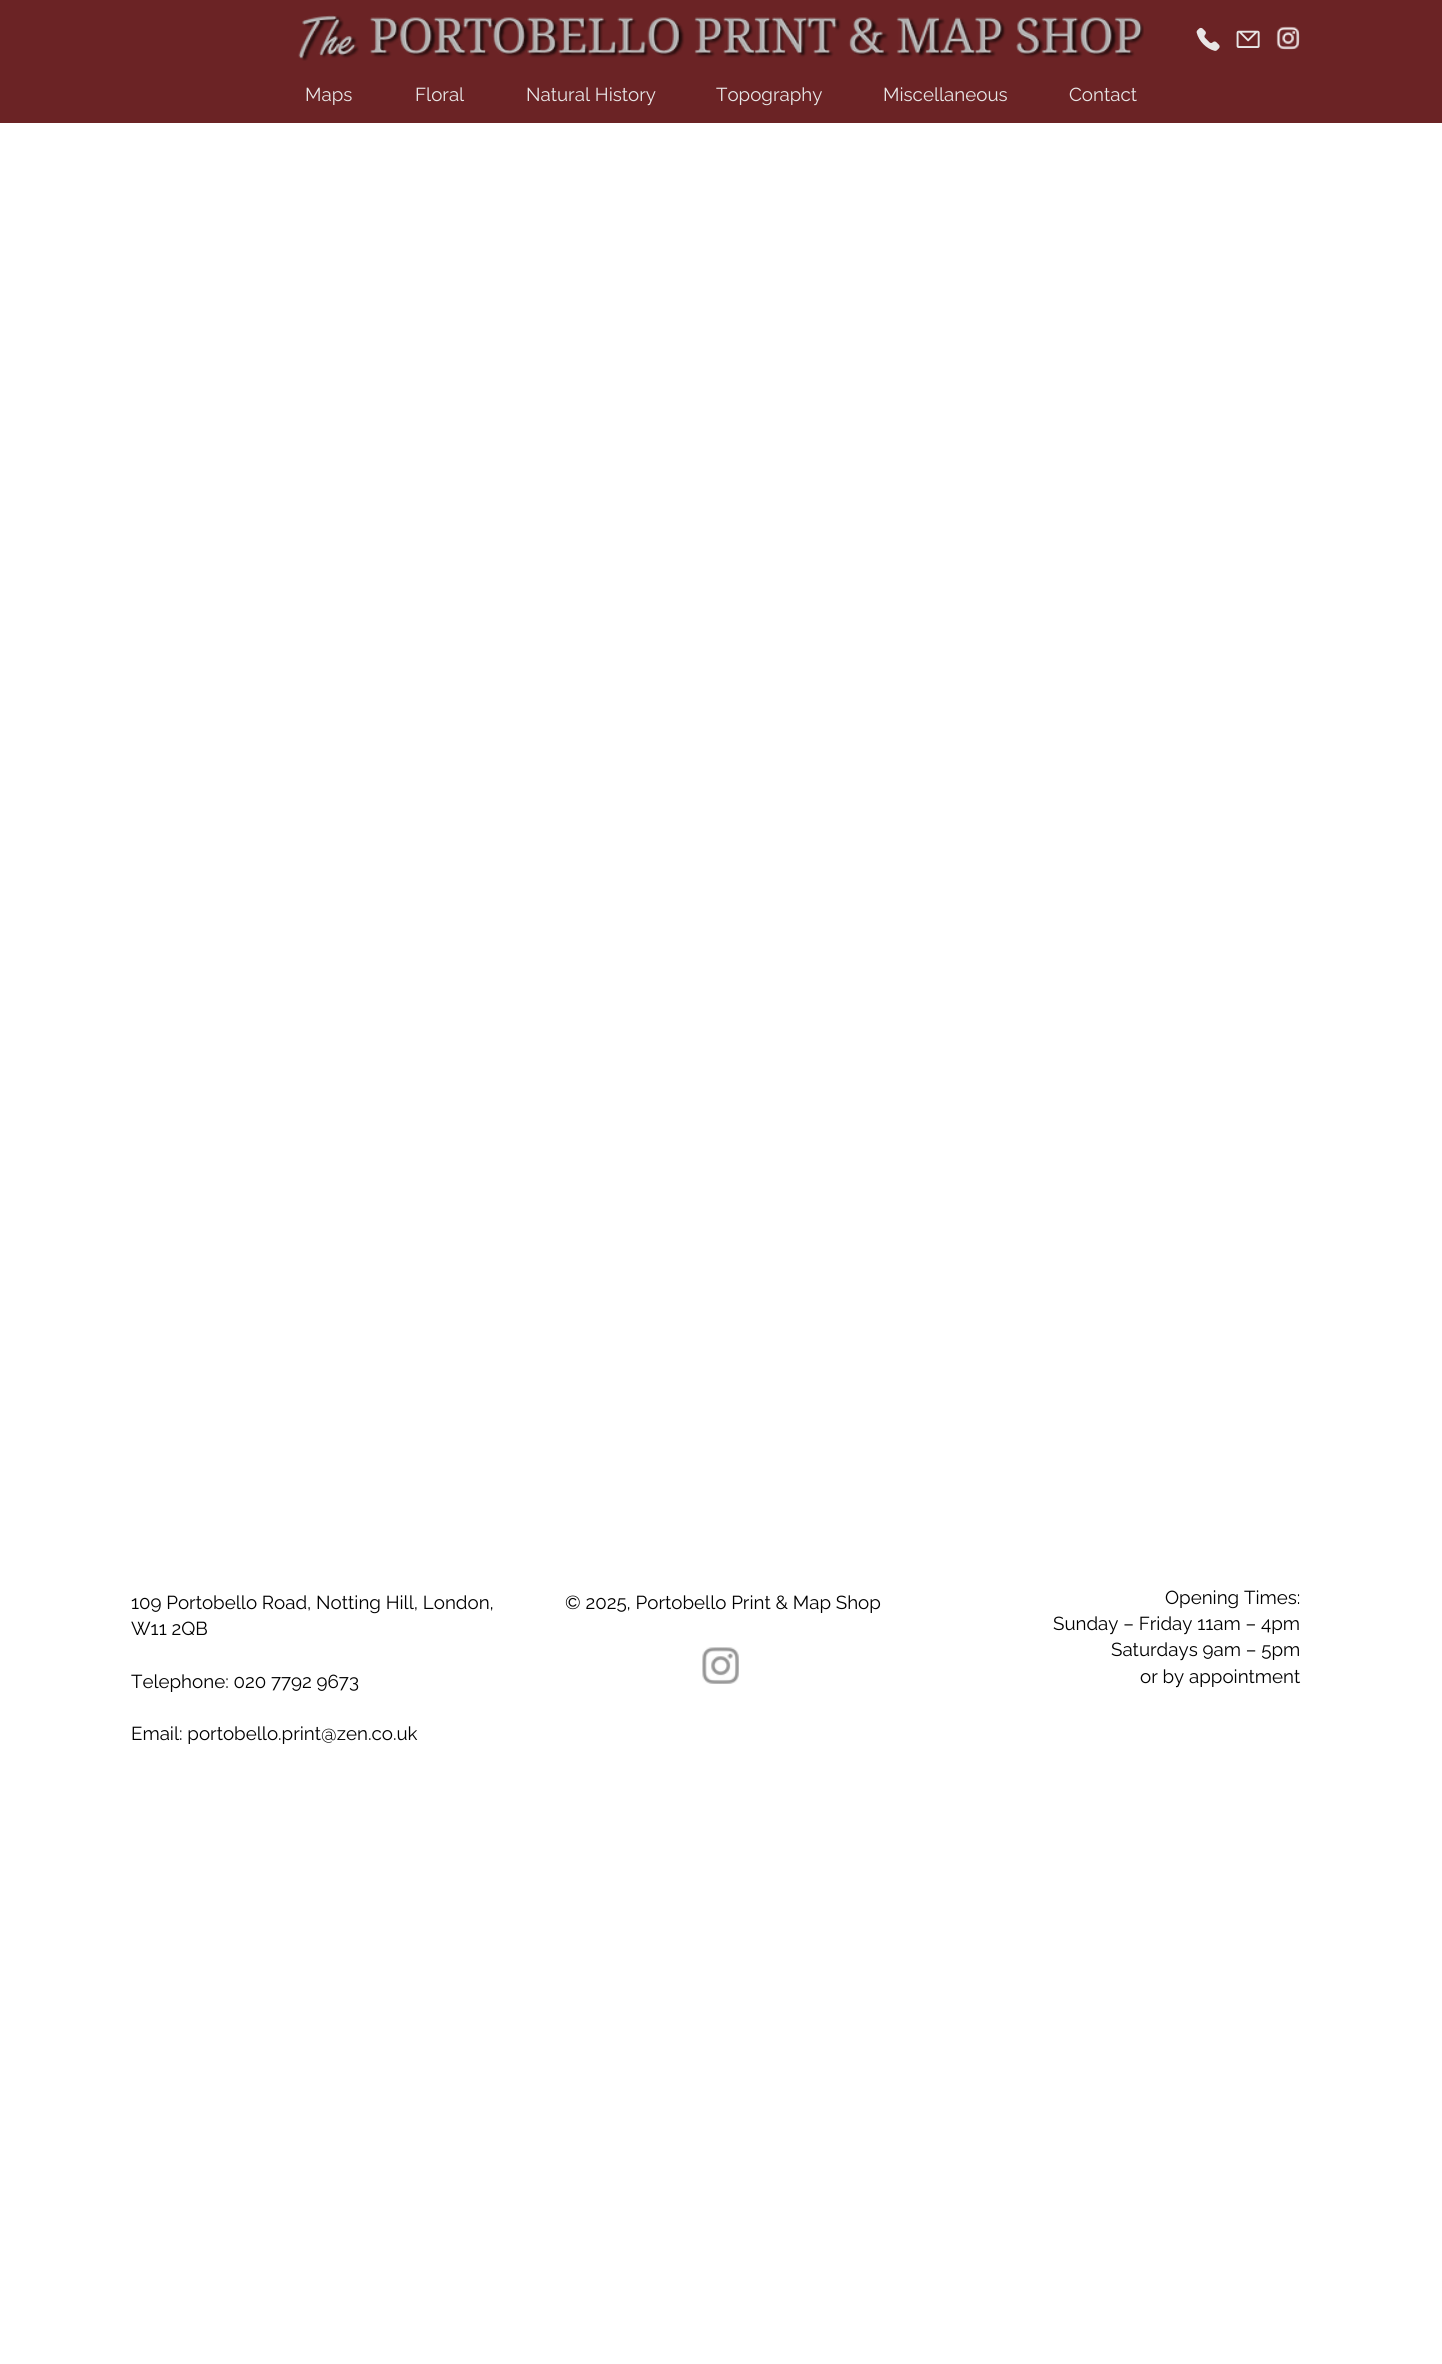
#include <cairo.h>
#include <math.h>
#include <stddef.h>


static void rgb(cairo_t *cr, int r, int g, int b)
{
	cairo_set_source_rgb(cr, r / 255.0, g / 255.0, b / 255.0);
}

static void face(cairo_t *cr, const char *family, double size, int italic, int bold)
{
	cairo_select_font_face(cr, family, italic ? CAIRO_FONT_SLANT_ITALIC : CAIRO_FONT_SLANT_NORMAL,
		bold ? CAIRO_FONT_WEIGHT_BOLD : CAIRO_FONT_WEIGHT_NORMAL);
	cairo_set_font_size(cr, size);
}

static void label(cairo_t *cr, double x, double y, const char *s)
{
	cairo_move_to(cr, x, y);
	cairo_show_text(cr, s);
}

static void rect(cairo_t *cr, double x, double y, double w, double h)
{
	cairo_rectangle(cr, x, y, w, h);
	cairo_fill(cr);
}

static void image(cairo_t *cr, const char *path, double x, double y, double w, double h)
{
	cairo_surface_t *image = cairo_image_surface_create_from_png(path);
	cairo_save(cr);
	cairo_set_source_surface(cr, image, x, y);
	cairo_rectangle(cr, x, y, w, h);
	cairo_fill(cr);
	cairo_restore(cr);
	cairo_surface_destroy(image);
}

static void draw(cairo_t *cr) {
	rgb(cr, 255, 255, 255);
	cairo_paint(cr);
	rgb(cr, 107, 35, 37);
	rect(cr, 0, 0, 1442, 123);
	image(cr, "image0.png", 298, 15, 846, 46);
	image(cr, "image1.png", 1196, 27, 24, 24);
	image(cr, "image2.png", 1236, 30, 24, 18);
	image(cr, "image3.png", 1276, 26, 24, 24);
	face(cr, "Raleway", 18.75, 0, 0);
	rgb(cr, 232, 230, 230);
	label(cr, 305, 101, "Maps");
	label(cr, 415, 101, "Floral");
	label(cr, 526, 101, "Natural History");
	label(cr, 716, 101, "Topography");
	label(cr, 883, 101, "Miscellaneous");
	label(cr, 1069, 101, "Contact");
	rgb(cr, 0, 0, 0);
	label(cr, 131, 1609, "109 Portobello Road, Notting Hill, London,");
	label(cr, 131, 1635, "W11 2QB");
	label(cr, 131, 1688, "Telephone: 020 7792 9673");
	label(cr, 131, 1740, "Email: portobello.print@zen.co.uk");
	label(cr, 565, 1609, "© 2025, Portobello Print & Map Shop");
	label(cr, 1165, 1604, "Opening Times:");
	label(cr, 1053, 1630, "Sunday – Friday 11am – 4pm");
	label(cr, 1111, 1656, "Saturdays 9am – 5pm");
	label(cr, 1140, 1683, "or by appointment");
	image(cr, "image4.png", 702, 1647, 37, 37);
}

int main(void) {
	cairo_surface_t *surface = cairo_image_surface_create(CAIRO_FORMAT_RGB24, 1442, 2364);
	cairo_t *cr = cairo_create(surface);
	cairo_font_options_t *options = cairo_font_options_create();
	cairo_font_options_set_hint_metrics(options, CAIRO_HINT_METRICS_OFF);
	cairo_font_options_set_hint_style(options, CAIRO_HINT_STYLE_NONE);
	cairo_set_font_options(cr, options);
	cairo_set_miter_limit(cr, 4);
	draw(cr);
	cairo_surface_write_to_png(surface, "render.png");
	cairo_font_options_destroy(options);
	cairo_destroy(cr);
	cairo_surface_destroy(surface);
	return 0;
}
